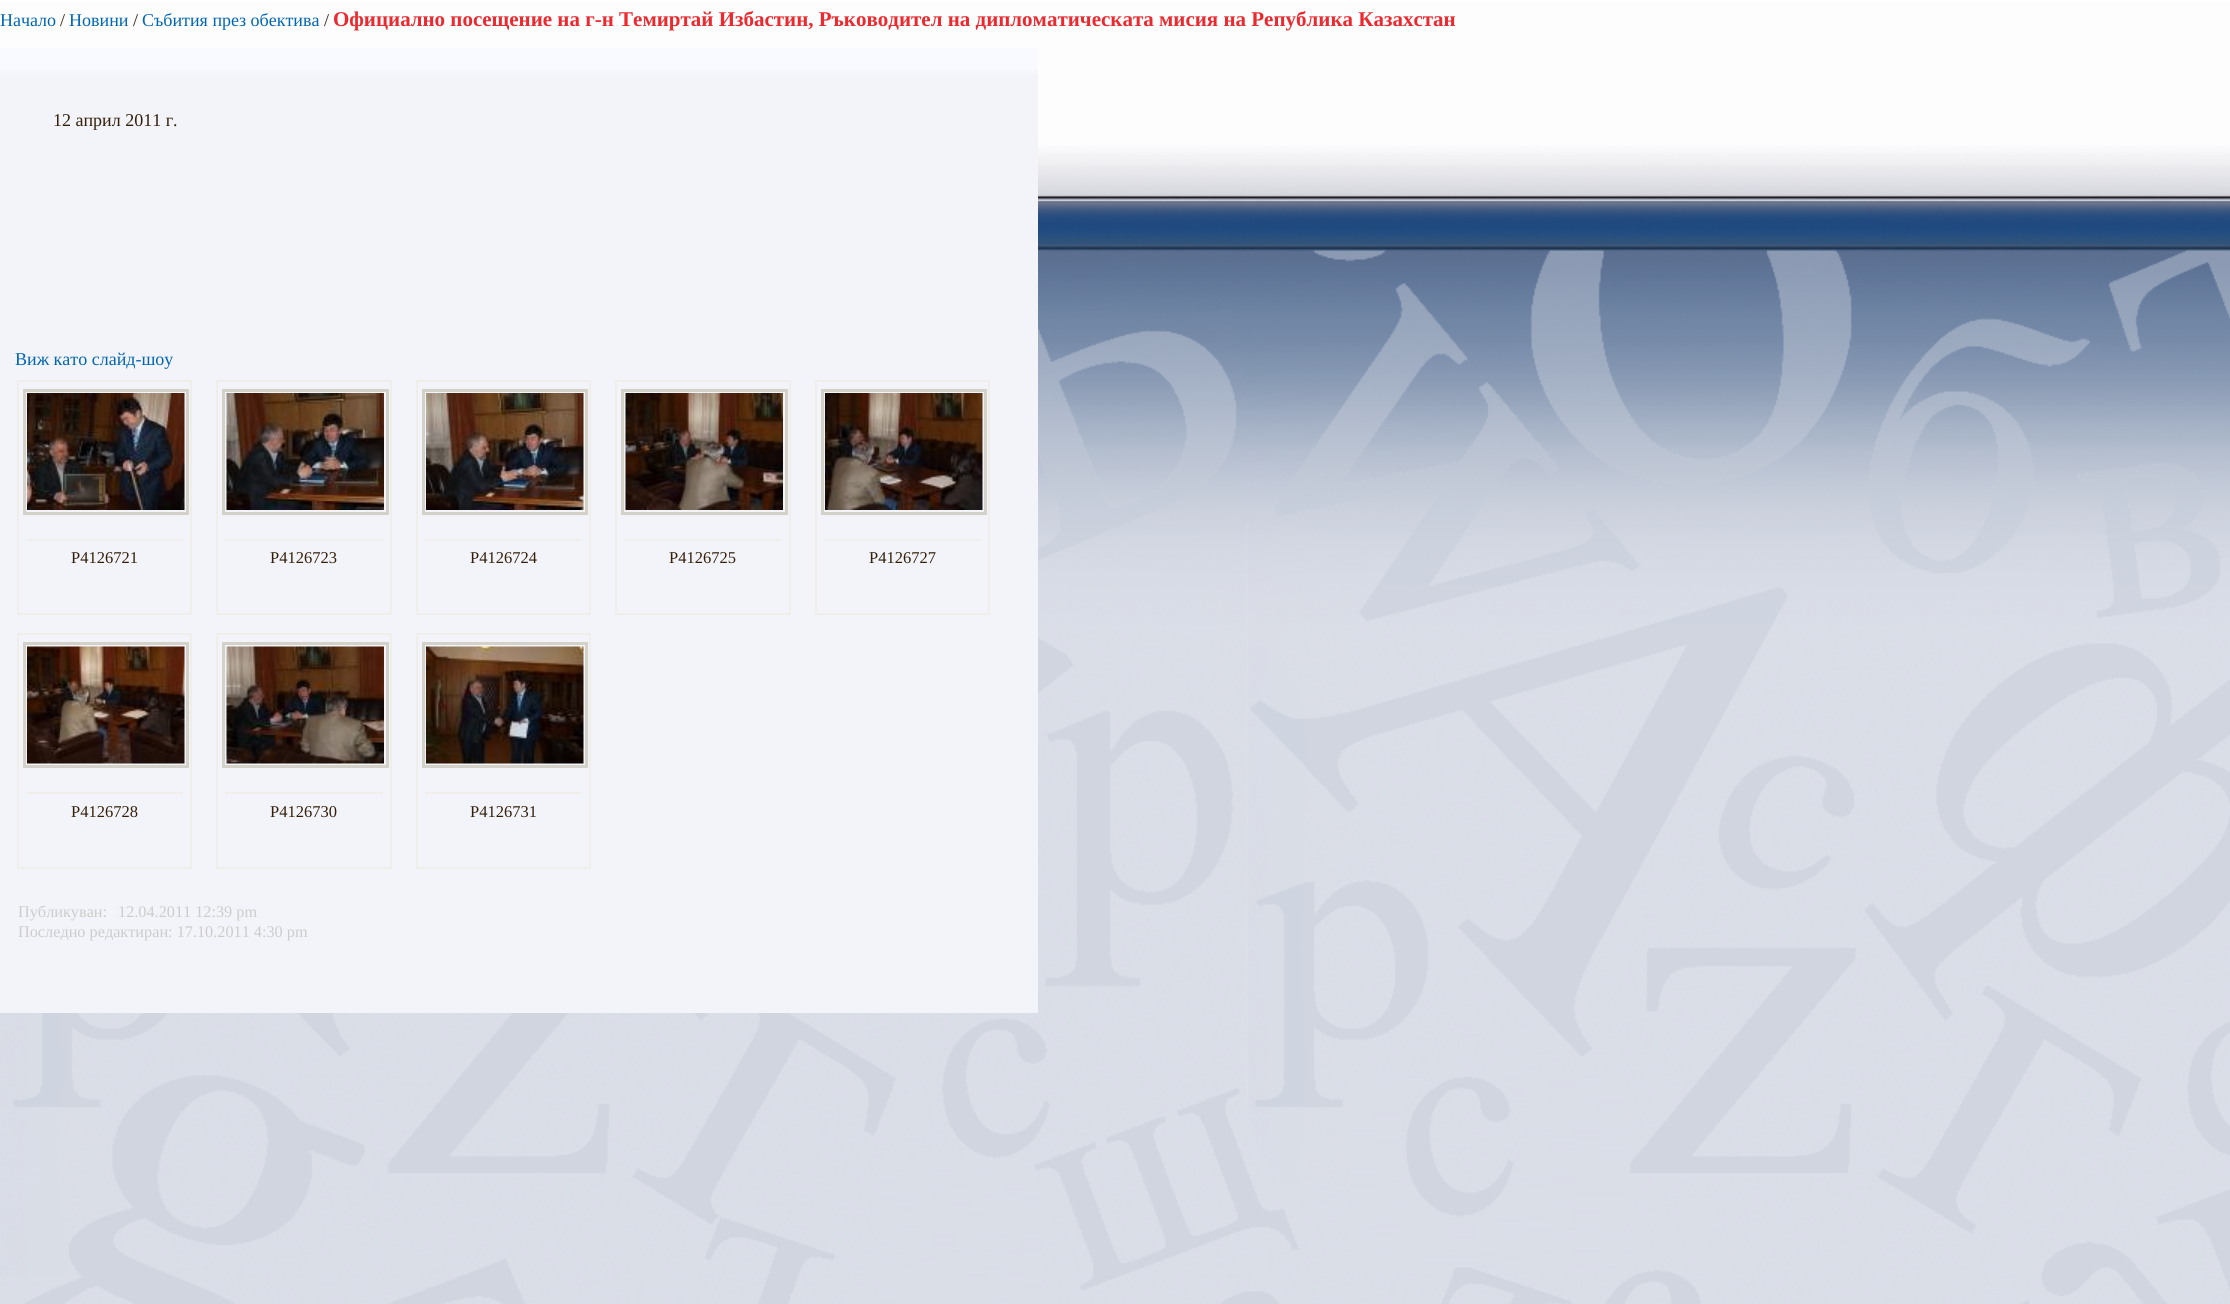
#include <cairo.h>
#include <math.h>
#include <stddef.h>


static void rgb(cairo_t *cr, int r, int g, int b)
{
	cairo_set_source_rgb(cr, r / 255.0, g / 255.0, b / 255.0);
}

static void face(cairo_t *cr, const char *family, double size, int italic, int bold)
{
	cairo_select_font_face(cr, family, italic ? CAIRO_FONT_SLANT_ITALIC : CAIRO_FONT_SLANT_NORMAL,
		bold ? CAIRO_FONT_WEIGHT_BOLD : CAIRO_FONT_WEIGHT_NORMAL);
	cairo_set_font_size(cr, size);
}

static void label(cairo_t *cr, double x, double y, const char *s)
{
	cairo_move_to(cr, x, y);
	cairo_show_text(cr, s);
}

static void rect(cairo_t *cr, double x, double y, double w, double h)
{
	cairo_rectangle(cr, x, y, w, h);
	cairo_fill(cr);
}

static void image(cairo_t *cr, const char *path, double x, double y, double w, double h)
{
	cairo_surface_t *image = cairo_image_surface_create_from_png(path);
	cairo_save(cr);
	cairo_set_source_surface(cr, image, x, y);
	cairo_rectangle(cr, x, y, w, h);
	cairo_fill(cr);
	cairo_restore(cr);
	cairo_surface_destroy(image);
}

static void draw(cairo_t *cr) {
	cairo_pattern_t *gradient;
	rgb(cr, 255, 255, 255);
	cairo_paint(cr);
	image(cr, "image0.png", 0, 0, 2230, 1304);
	face(cr, "Liberation Serif", 18, 0, 0);
	rgb(cr, 0, 102, 177);
	label(cr, 0, 26, "Начало");
	rgb(cr, 51, 31, 9);
	label(cr, 60, 26, "/");
	rgb(cr, 0, 102, 177);
	label(cr, 69, 26, "Новини");
	rgb(cr, 51, 31, 9);
	label(cr, 133, 26, "/");
	rgb(cr, 0, 102, 177);
	label(cr, 142, 26, "Събития през обектива");
	rgb(cr, 51, 31, 9);
	label(cr, 324, 26, "/");
	face(cr, "Liberation Serif", 21, 0, 1);
	rgb(cr, 234, 42, 47);
	label(cr, 333, 26, "Официално посещение на г-н Темиртай Избастин, Ръководител на дипломатическата мисия на Република Казахстан");
	gradient = cairo_pattern_create_linear(519, 48, 519, 1013);
	cairo_pattern_add_color_stop_rgba(gradient, 0.02, 0.976, 0.98, 1, 1);
	cairo_pattern_add_color_stop_rgba(gradient, 0.03, 0.953, 0.957, 0.976, 1);
	cairo_set_source(cr, gradient);
	cairo_pattern_destroy(gradient);
	rect(cr, 0, 48, 1038, 965);
	face(cr, "Liberation Serif", 18, 0, 0);
	rgb(cr, 51, 31, 9);
	label(cr, 53, 126, "12 април 2011 г.");
	rgb(cr, 0, 102, 177);
	label(cr, 15, 365, "Виж като слайд-шоу");
	cairo_rectangle(cr, 18, 381, 173, 233);
	rgb(cr, 239, 238, 233);
	cairo_stroke(cr);
	cairo_rectangle(cr, 24.5, 390.5, 163, 123);
	rgb(cr, 212, 210, 200);
	cairo_set_line_width(cr, 3);
	cairo_stroke(cr);
	image(cr, "image1.png", 27, 393, 158, 117);
	rgb(cr, 239, 238, 233);
	rect(cr, 26, 539, 157, 2);
	face(cr, "Liberation Serif", 16.5, 0, 0);
	rgb(cr, 51, 31, 9);
	label(cr, 71, 563, "P4126721");
	cairo_rectangle(cr, 217, 381, 174, 233);
	rgb(cr, 239, 238, 233);
	cairo_set_line_width(cr, 2);
	cairo_stroke(cr);
	cairo_rectangle(cr, 223.5, 390.5, 164, 123);
	rgb(cr, 212, 210, 200);
	cairo_set_line_width(cr, 3);
	cairo_stroke(cr);
	image(cr, "image2.png", 226, 393, 158, 117);
	rgb(cr, 239, 238, 233);
	rect(cr, 225, 539, 158, 2);
	rgb(cr, 51, 31, 9);
	label(cr, 270, 563, "P4126723");
	cairo_rectangle(cr, 417, 381, 173, 233);
	rgb(cr, 239, 238, 233);
	cairo_set_line_width(cr, 2);
	cairo_stroke(cr);
	cairo_rectangle(cr, 423.5, 390.5, 163, 123);
	rgb(cr, 212, 210, 200);
	cairo_set_line_width(cr, 3);
	cairo_stroke(cr);
	image(cr, "image3.png", 426, 393, 158, 117);
	rgb(cr, 239, 238, 233);
	rect(cr, 425, 539, 157, 2);
	rgb(cr, 51, 31, 9);
	label(cr, 470, 563, "P4126724");
	cairo_rectangle(cr, 616, 381, 174, 233);
	rgb(cr, 239, 238, 233);
	cairo_set_line_width(cr, 2);
	cairo_stroke(cr);
	cairo_rectangle(cr, 622.5, 390.5, 164, 123);
	rgb(cr, 212, 210, 200);
	cairo_set_line_width(cr, 3);
	cairo_stroke(cr);
	image(cr, "image4.png", 625, 393, 158, 117);
	rgb(cr, 239, 238, 233);
	rect(cr, 624, 539, 158, 2);
	rgb(cr, 51, 31, 9);
	label(cr, 669, 563, "P4126725");
	cairo_rectangle(cr, 816, 381, 173, 233);
	rgb(cr, 239, 238, 233);
	cairo_set_line_width(cr, 2);
	cairo_stroke(cr);
	cairo_rectangle(cr, 822.5, 390.5, 163, 123);
	rgb(cr, 212, 210, 200);
	cairo_set_line_width(cr, 3);
	cairo_stroke(cr);
	image(cr, "image5.png", 825, 393, 158, 117);
	rgb(cr, 239, 238, 233);
	rect(cr, 824, 539, 157, 2);
	rgb(cr, 51, 31, 9);
	label(cr, 869, 563, "P4126727");
	cairo_rectangle(cr, 18, 634, 173, 234);
	rgb(cr, 239, 238, 233);
	cairo_set_line_width(cr, 2);
	cairo_stroke(cr);
	cairo_rectangle(cr, 24.5, 643.5, 163, 123);
	rgb(cr, 212, 210, 200);
	cairo_set_line_width(cr, 3);
	cairo_stroke(cr);
	image(cr, "image6.png", 27, 646, 158, 118);
	rgb(cr, 239, 238, 233);
	rect(cr, 26, 792, 157, 2);
	rgb(cr, 51, 31, 9);
	label(cr, 71, 817, "P4126728");
	cairo_rectangle(cr, 217, 634, 174, 234);
	rgb(cr, 239, 238, 233);
	cairo_set_line_width(cr, 2);
	cairo_stroke(cr);
	cairo_rectangle(cr, 223.5, 643.5, 164, 123);
	rgb(cr, 212, 210, 200);
	cairo_set_line_width(cr, 3);
	cairo_stroke(cr);
	image(cr, "image7.png", 226, 646, 158, 118);
	rgb(cr, 239, 238, 233);
	rect(cr, 225, 792, 158, 2);
	rgb(cr, 51, 31, 9);
	label(cr, 270, 817, "P4126730");
	cairo_rectangle(cr, 417, 634, 173, 234);
	rgb(cr, 239, 238, 233);
	cairo_set_line_width(cr, 2);
	cairo_stroke(cr);
	cairo_rectangle(cr, 423.5, 643.5, 163, 123);
	rgb(cr, 212, 210, 200);
	cairo_set_line_width(cr, 3);
	cairo_stroke(cr);
	image(cr, "image8.png", 426, 646, 158, 118);
	rgb(cr, 239, 238, 233);
	rect(cr, 425, 792, 157, 2);
	rgb(cr, 51, 31, 9);
	label(cr, 470, 817, "P4126731");
	face(cr, "Liberation Serif", 16.25, 0, 0);
	rgb(cr, 204, 204, 204);
	label(cr, 18, 917, "Публикуван:");
	label(cr, 118, 917, "12.04.2011 12:39 pm");
	label(cr, 18, 937, "Последно редактиран: 17.10.2011 4:30 pm");
}

int main(void) {
	cairo_surface_t *surface = cairo_image_surface_create(CAIRO_FORMAT_RGB24, 2230, 1304);
	cairo_t *cr = cairo_create(surface);
	cairo_font_options_t *options = cairo_font_options_create();
	cairo_font_options_set_hint_metrics(options, CAIRO_HINT_METRICS_OFF);
	cairo_font_options_set_hint_style(options, CAIRO_HINT_STYLE_NONE);
	cairo_set_font_options(cr, options);
	cairo_set_miter_limit(cr, 4);
	draw(cr);
	cairo_surface_write_to_png(surface, "render.png");
	cairo_font_options_destroy(options);
	cairo_destroy(cr);
	cairo_surface_destroy(surface);
	return 0;
}
